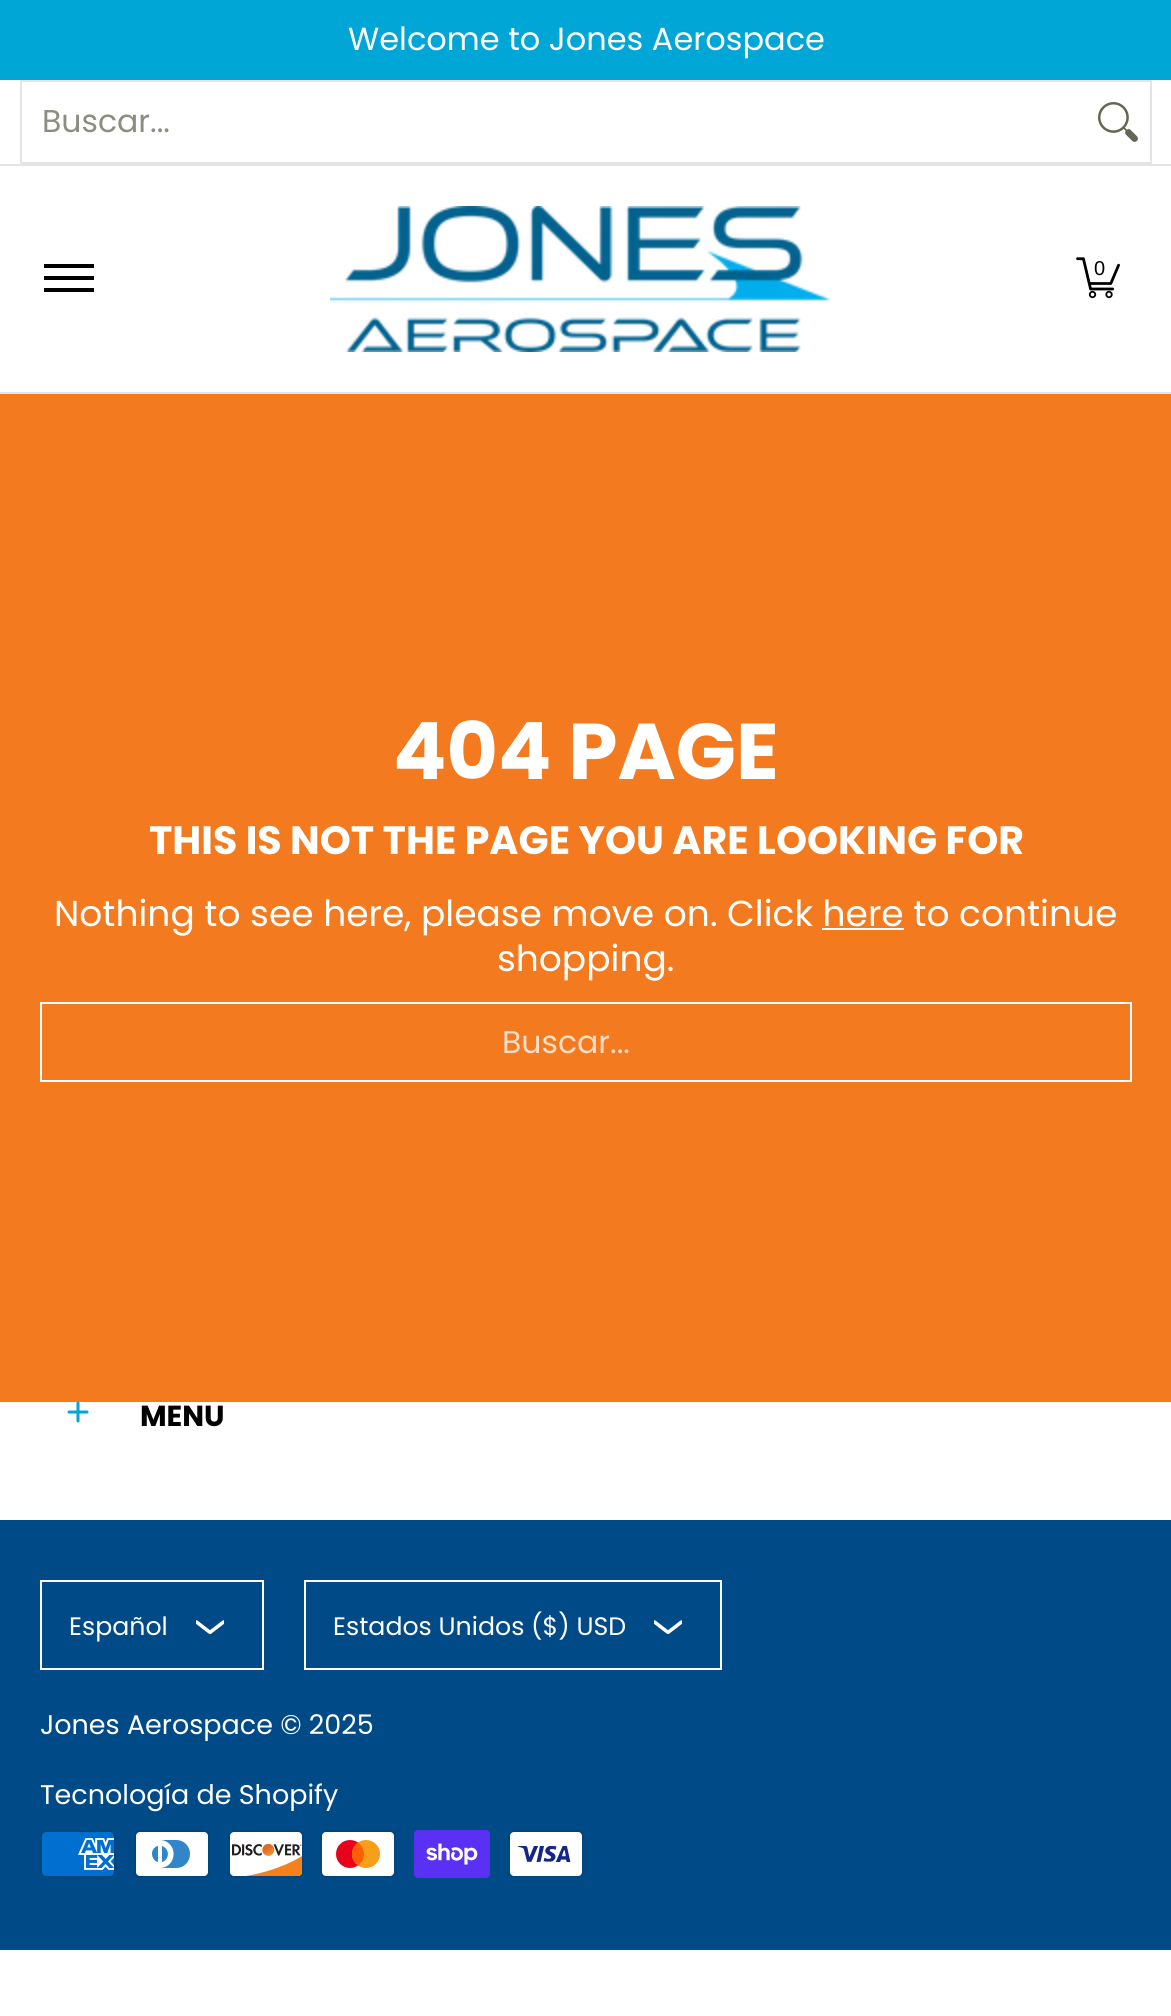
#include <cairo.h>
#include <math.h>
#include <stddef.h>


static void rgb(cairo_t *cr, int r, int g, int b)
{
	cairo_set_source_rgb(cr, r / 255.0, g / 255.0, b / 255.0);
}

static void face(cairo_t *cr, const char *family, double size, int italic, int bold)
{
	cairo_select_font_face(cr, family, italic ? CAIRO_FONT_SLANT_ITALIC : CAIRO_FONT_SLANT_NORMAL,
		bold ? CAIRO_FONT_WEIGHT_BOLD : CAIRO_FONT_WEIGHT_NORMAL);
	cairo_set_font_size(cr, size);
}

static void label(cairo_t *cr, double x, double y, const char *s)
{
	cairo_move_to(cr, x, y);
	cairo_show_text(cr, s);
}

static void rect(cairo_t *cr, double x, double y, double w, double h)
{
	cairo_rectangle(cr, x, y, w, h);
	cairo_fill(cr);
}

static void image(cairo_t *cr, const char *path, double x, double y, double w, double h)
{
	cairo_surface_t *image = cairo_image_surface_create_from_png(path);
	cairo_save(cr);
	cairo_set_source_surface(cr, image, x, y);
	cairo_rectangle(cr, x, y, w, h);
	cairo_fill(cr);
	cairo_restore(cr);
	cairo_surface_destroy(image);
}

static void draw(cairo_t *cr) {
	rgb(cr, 255, 255, 255);
	cairo_paint(cr);
	rgb(cr, 0, 166, 214);
	rect(cr, 0, 0, 1171, 80);
	face(cr, "Poppins", 32, 0, 0);
	rgb(cr, 255, 255, 255);
	label(cr, 348, 50, "Welcome to Jones Aerospace");
	rgb(cr, 228, 228, 228);
	rect(cr, 0, 164, 1171, 2);
	cairo_rectangle(cr, 21, 81, 1130, 82);
	cairo_stroke(cr);
	face(cr, "Poppins", 31.5, 0, 0);
	rgb(cr, 140, 140, 128);
	label(cr, 42, 132, "Buscar...");
	image(cr, "image0.png", 1098, 102, 40, 40);
	rgb(cr, 228, 228, 228);
	rect(cr, 0, 392, 1171, 2);
	rgb(cr, 0, 0, 0);
	rect(cr, 44, 264, 50, 4);
	rect(cr, 44, 288, 50, 4);
	rect(cr, 44, 276, 50, 4);
	image(cr, "image1.png", 330, 206, 500, 146);
	image(cr, "image2.png", 1076, 257, 44, 42);
	rgb(cr, 255, 255, 255);
	cairo_arc(cr, 1100, 268, 12, 0, 2 * M_PI);
	cairo_fill(cr);
	face(cr, "Liberation Sans", 20, 0, 0);
	rgb(cr, 0, 0, 0);
	label(cr, 1094, 275, "0");
	rgb(cr, 243, 122, 31);
	rect(cr, 0, 394, 1171, 1008);
	face(cr, "Poppins", 79, 0, 1);
	rgb(cr, 255, 255, 255);
	label(cr, 393, 779, "404 PAGE");
	face(cr, "Poppins", 39.55, 0, 1);
	label(cr, 149, 854, "THIS IS NOT THE PAGE YOU ARE LOOKING FOR");
	face(cr, "Poppins", 36, 0, 0);
	label(cr, 54, 926, "Nothing to see here, please move on. Click here to continue");
	rect(cr, 822, 928, 82, 2);
	label(cr, 497, 971, "shopping.");
	cairo_rectangle(cr, 41, 1003, 1090, 78);
	cairo_stroke(cr);
	face(cr, "Poppins", 31.5, 0, 0);
	rgb(cr, 252, 222, 199);
	label(cr, 502, 1053, "Buscar...");
	cairo_new_path(cr);
	cairo_move_to(cr, 78, 1403);
	cairo_line_to(cr, 78, 1421);
	cairo_move_to(cr, 87, 1412);
	cairo_line_to(cr, 69, 1412);
	rgb(cr, 0, 166, 214);
	cairo_set_line_width(cr, 3);
	cairo_set_line_cap(cr, CAIRO_LINE_CAP_ROUND);
	cairo_set_line_join(cr, CAIRO_LINE_JOIN_ROUND);
	cairo_stroke(cr);
	face(cr, "Poppins", 29, 0, 1);
	rgb(cr, 0, 0, 0);
	label(cr, 140, 1426, "MENU");
	rgb(cr, 0, 75, 135);
	rect(cr, 0, 1520, 1171, 430);
	cairo_rectangle(cr, 41, 1581, 222, 88);
	rgb(cr, 255, 255, 255);
	cairo_set_line_width(cr, 2);
	cairo_set_line_cap(cr, CAIRO_LINE_CAP_BUTT);
	cairo_set_line_join(cr, CAIRO_LINE_JOIN_MITER);
	cairo_stroke(cr);
	face(cr, "Poppins", 25.25, 0, 0);
	label(cr, 69, 1635, "Español");
	cairo_save(cr);
	cairo_rectangle(cr, 196, 1612, 28, 28);
	cairo_clip(cr);
	cairo_new_path(cr);
	cairo_move_to(cr, 196.5, 1622);
	cairo_line_to(cr, 209.5, 1632);
	cairo_curve_to(cr, 210, 1632.5, 210.5, 1632.5, 210.5, 1632);
	cairo_line_to(cr, 223.5, 1622);
	cairo_set_line_width(cr, 3.5);
	cairo_set_line_cap(cr, CAIRO_LINE_CAP_ROUND);
	cairo_set_line_join(cr, CAIRO_LINE_JOIN_ROUND);
	cairo_stroke(cr);
	cairo_restore(cr);
	cairo_rectangle(cr, 305, 1581, 416, 88);
	cairo_stroke(cr);
	label(cr, 333, 1635, "Estados Unidos ($) USD");
	cairo_save(cr);
	cairo_rectangle(cr, 654, 1612, 28, 28);
	cairo_clip(cr);
	cairo_new_path(cr);
	cairo_move_to(cr, 654.5, 1622);
	cairo_line_to(cr, 667.5, 1632);
	cairo_curve_to(cr, 668, 1632.5, 668.5, 1632.5, 668.5, 1632);
	cairo_line_to(cr, 681.5, 1622);
	cairo_set_line_width(cr, 3.5);
	cairo_set_line_cap(cr, CAIRO_LINE_CAP_ROUND);
	cairo_set_line_join(cr, CAIRO_LINE_JOIN_ROUND);
	cairo_stroke(cr);
	cairo_restore(cr);
	face(cr, "Poppins", 27, 0, 0);
	label(cr, 40, 1734, "Jones Aerospace © 2025");
	label(cr, 40, 1804, "Tecnología de Shopify");
	image(cr, "image3.png", 40, 1830, 76, 48);
	image(cr, "image4.png", 134, 1830, 76, 48);
	image(cr, "image5.png", 228, 1830, 76, 48);
	image(cr, "image6.png", 320, 1830, 76, 48);
	image(cr, "image7.png", 414, 1830, 76, 48);
	image(cr, "image8.png", 508, 1830, 76, 48);
}

int main(void) {
	cairo_surface_t *surface = cairo_image_surface_create(CAIRO_FORMAT_RGB24, 1171, 2016);
	cairo_t *cr = cairo_create(surface);
	cairo_font_options_t *options = cairo_font_options_create();
	cairo_font_options_set_hint_metrics(options, CAIRO_HINT_METRICS_OFF);
	cairo_font_options_set_hint_style(options, CAIRO_HINT_STYLE_NONE);
	cairo_set_font_options(cr, options);
	cairo_set_miter_limit(cr, 4);
	draw(cr);
	cairo_surface_write_to_png(surface, "render.png");
	cairo_font_options_destroy(options);
	cairo_destroy(cr);
	cairo_surface_destroy(surface);
	return 0;
}
